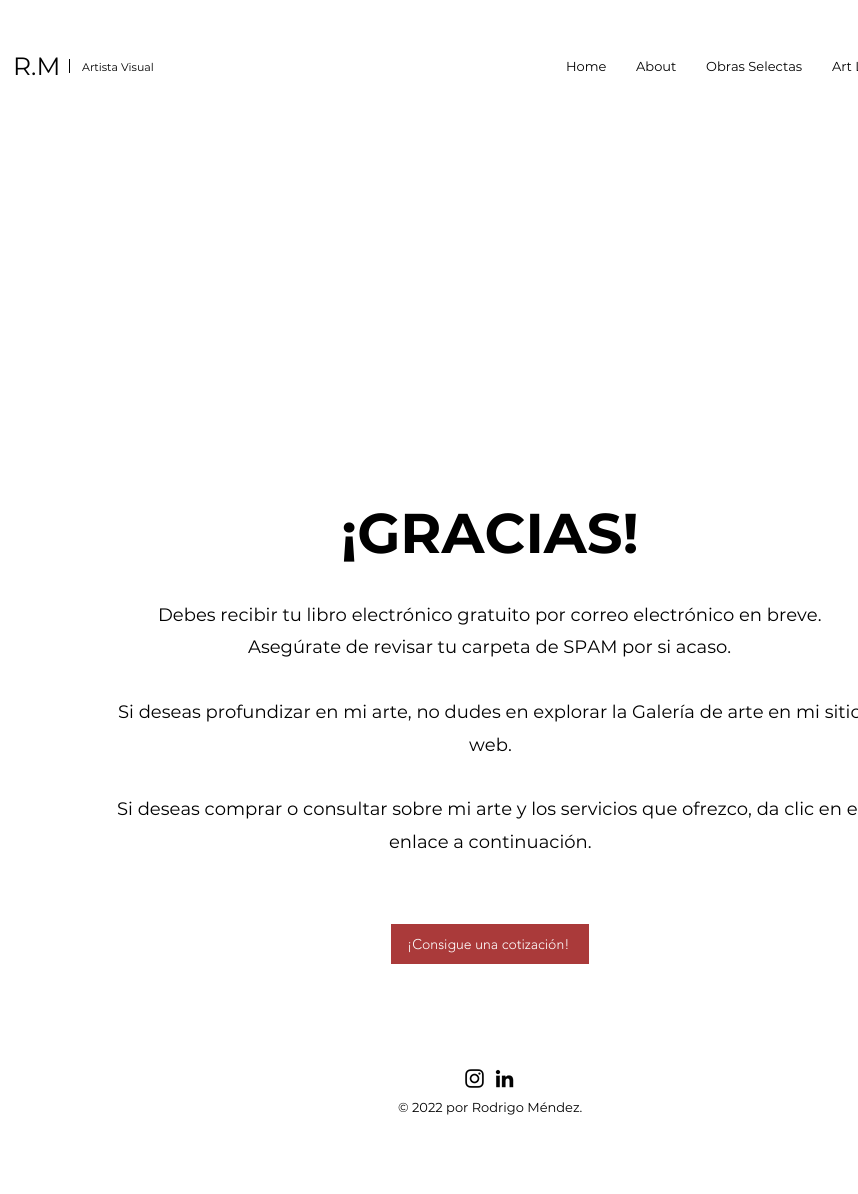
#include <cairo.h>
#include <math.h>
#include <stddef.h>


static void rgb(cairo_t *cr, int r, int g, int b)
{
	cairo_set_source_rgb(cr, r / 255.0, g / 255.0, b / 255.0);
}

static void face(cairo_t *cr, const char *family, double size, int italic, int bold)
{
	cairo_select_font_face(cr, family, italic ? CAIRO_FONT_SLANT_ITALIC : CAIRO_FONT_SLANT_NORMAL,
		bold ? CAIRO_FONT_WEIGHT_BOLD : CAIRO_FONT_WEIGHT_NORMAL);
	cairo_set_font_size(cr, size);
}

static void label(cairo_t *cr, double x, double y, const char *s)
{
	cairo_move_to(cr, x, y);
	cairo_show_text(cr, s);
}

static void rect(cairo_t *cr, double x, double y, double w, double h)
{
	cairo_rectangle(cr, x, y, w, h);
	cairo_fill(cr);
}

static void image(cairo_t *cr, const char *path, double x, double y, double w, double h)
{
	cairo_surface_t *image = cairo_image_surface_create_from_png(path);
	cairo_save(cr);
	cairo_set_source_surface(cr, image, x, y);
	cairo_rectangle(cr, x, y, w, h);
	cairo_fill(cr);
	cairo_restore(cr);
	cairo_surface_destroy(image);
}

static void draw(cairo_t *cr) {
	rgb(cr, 255, 255, 255);
	cairo_paint(cr);
	face(cr, "Montserrat", 25, 0, 0);
	rgb(cr, 0, 0, 0);
	label(cr, 13, 75, "R.M");
	rect(cr, 69, 59, 1, 14);
	face(cr, "Montserrat", 11, 0, 0);
	label(cr, 82, 71, "Artista Visual");
	face(cr, "Montserrat", 13, 0, 0);
	label(cr, 566, 71, "Home");
	label(cr, 636, 71, "About");
	label(cr, 706, 71, "Obras Selectas");
	label(cr, 832, 71, "Art L");
	face(cr, "Montserrat", 56, 0, 1);
	label(cr, 341, 553, "¡GRACIAS!");
	face(cr, "Montserrat", 18, 0, 0);
	label(cr, 158, 621, "Debes recibir tu libro electrónico gratuito por correo electrónico en breve.");
	label(cr, 248, 653, "Asegúrate de revisar tu carpeta de SPAM por si acaso.");
	label(cr, 118, 718, "Si deseas profundizar en mi arte, no dudes en explorar la Galería de arte en mi sitio");
	label(cr, 469, 751, "web.");
	label(cr, 117, 815, "Si deseas comprar o consultar sobre mi arte y los servicios que ofrezco, da clic en e");
	label(cr, 389, 848, "enlace a continuación.");
	rgb(cr, 170, 58, 58);
	rect(cr, 391, 924, 198, 40);
	face(cr, "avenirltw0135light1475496 Light", 14, 0, 0);
	rgb(cr, 255, 255, 255);
	label(cr, 407, 949, "¡Consigue una cotización!");
	image(cr, "image0.png", 465, 1069, 19, 19);
	image(cr, "image1.png", 495, 1069, 19, 19);
	face(cr, "Montserrat", 13, 0, 0);
	rgb(cr, 0, 0, 0);
	label(cr, 398, 1112, "© 2022 por Rodrigo Méndez.");
}

int main(void) {
	cairo_surface_t *surface = cairo_image_surface_create(CAIRO_FORMAT_RGB24, 858, 1194);
	cairo_t *cr = cairo_create(surface);
	cairo_font_options_t *options = cairo_font_options_create();
	cairo_font_options_set_hint_metrics(options, CAIRO_HINT_METRICS_OFF);
	cairo_font_options_set_hint_style(options, CAIRO_HINT_STYLE_NONE);
	cairo_set_font_options(cr, options);
	cairo_set_miter_limit(cr, 4);
	draw(cr);
	cairo_surface_write_to_png(surface, "render.png");
	cairo_font_options_destroy(options);
	cairo_destroy(cr);
	cairo_surface_destroy(surface);
	return 0;
}
